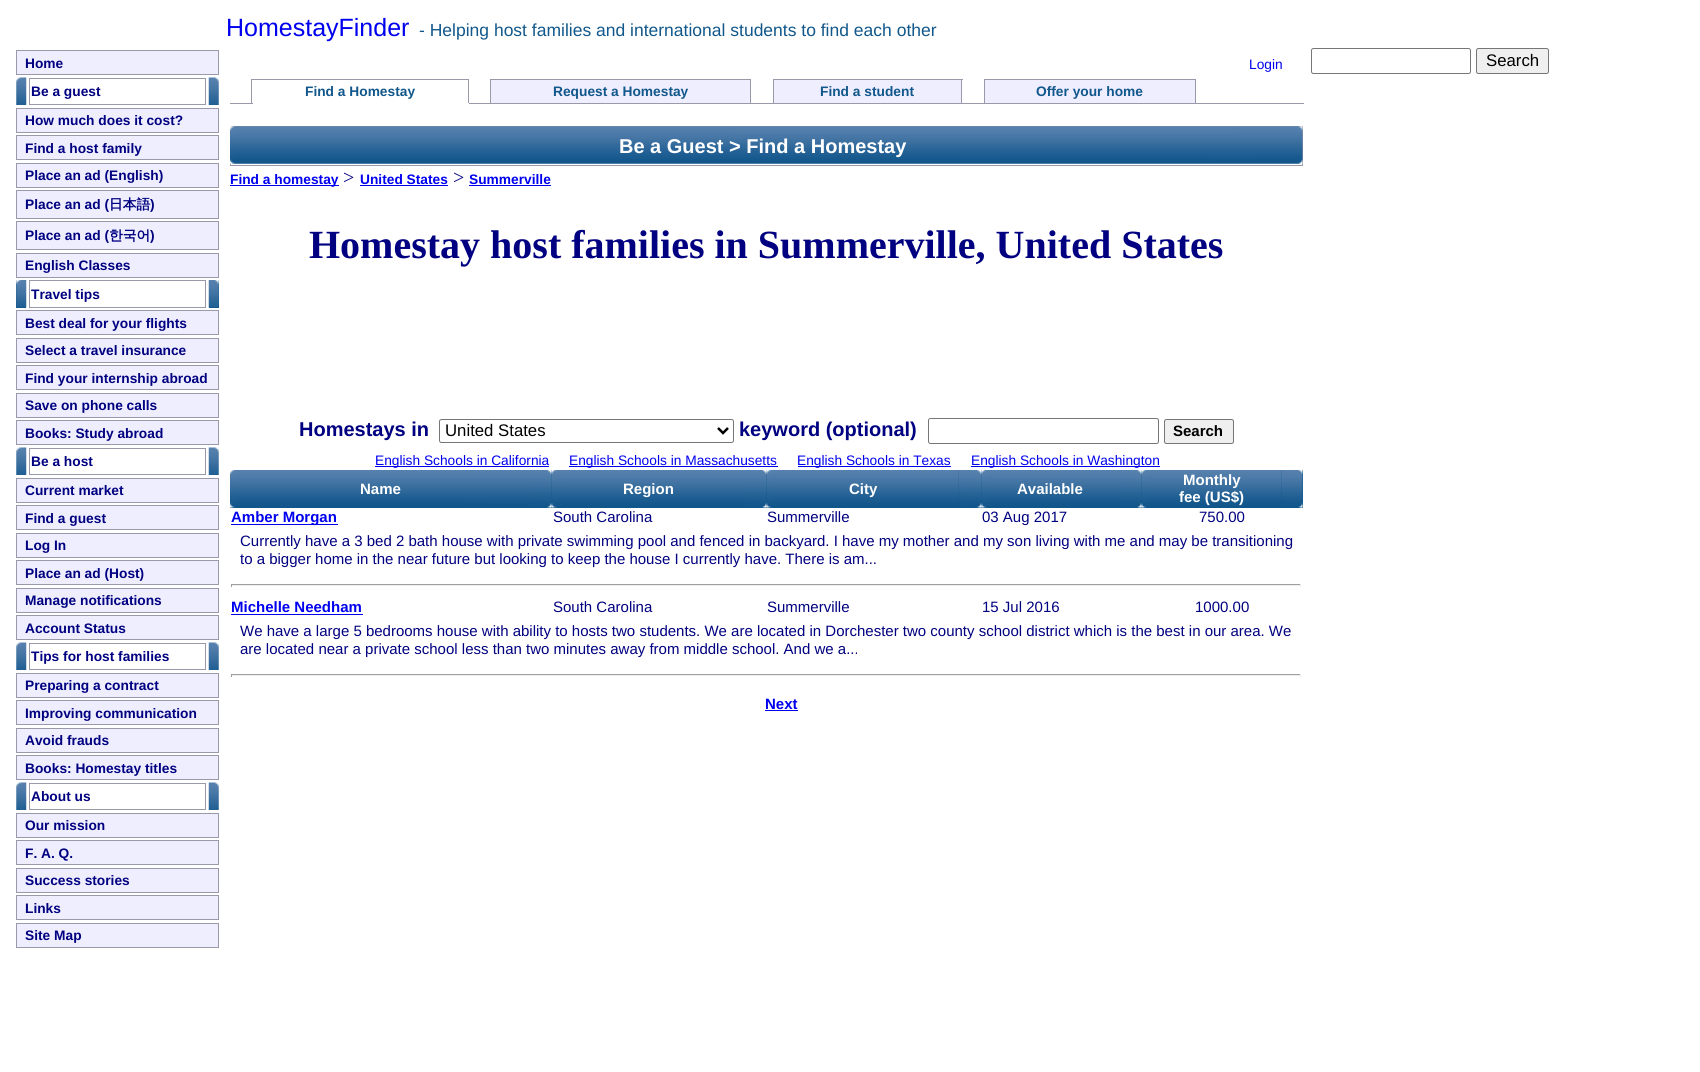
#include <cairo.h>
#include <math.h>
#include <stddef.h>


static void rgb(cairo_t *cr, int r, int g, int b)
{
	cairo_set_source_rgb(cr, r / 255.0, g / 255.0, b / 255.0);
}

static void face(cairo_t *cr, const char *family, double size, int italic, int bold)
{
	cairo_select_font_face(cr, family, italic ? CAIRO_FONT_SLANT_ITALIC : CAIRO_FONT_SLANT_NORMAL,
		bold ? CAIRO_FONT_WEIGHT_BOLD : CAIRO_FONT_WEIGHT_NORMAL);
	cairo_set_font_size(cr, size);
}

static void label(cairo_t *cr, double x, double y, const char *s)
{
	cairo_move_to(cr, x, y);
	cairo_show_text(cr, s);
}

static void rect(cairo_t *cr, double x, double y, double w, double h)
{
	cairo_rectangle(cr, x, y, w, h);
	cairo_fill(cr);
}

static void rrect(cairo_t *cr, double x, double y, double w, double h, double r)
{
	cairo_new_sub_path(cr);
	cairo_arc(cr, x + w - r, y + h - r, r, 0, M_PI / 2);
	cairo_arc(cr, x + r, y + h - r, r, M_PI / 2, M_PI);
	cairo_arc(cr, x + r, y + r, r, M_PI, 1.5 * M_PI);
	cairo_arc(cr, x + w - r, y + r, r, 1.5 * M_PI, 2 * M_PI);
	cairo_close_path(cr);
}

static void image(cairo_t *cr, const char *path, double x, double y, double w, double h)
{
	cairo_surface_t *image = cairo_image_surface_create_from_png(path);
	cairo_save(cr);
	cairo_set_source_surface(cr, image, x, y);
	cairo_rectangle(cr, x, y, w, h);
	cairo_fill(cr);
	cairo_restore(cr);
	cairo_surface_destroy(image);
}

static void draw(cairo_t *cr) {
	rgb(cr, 255, 255, 255);
	cairo_paint(cr);
	face(cr, "Liberation Sans", 25, 0, 0);
	rgb(cr, 0, 0, 238);
	label(cr, 226, 36, "HomestayFinder");
	face(cr, "Liberation Sans", 17.5, 0, 0);
	rgb(cr, 17, 87, 139);
	label(cr, 419, 36, "- Helping host families and international students to find each other");
	rgb(cr, 238, 238, 255);
	cairo_rectangle(cr, 16.5, 50.5, 202, 24);
	cairo_fill_preserve(cr);
	rgb(cr, 153, 153, 170);
	cairo_set_line_width(cr, 1);
	cairo_stroke(cr);
	face(cr, "Liberation Sans", 13.75, 0, 1);
	rgb(cr, 0, 0, 128);
	label(cr, 25, 68, "Home");
	image(cr, "image0.png", 16, 77, 11, 28);
	cairo_rectangle(cr, 29.5, 78.5, 176, 26);
	rgb(cr, 153, 153, 170);
	cairo_stroke(cr);
	rgb(cr, 0, 0, 128);
	label(cr, 31, 96, "Be a guest");
	image(cr, "image1.png", 208, 77, 11, 28);
	rgb(cr, 238, 238, 255);
	cairo_rectangle(cr, 16.5, 108.5, 202, 24);
	cairo_fill_preserve(cr);
	rgb(cr, 153, 153, 170);
	cairo_stroke(cr);
	rgb(cr, 0, 0, 128);
	label(cr, 25, 125, "How much does it cost?");
	rgb(cr, 238, 238, 255);
	cairo_rectangle(cr, 16.5, 135.5, 202, 24);
	cairo_fill_preserve(cr);
	rgb(cr, 153, 153, 170);
	cairo_stroke(cr);
	rgb(cr, 0, 0, 128);
	label(cr, 25, 153, "Find a host family");
	rgb(cr, 238, 238, 255);
	cairo_rectangle(cr, 16.5, 163.5, 202, 24);
	cairo_fill_preserve(cr);
	rgb(cr, 153, 153, 170);
	cairo_stroke(cr);
	rgb(cr, 0, 0, 128);
	label(cr, 25, 180, "Place an ad (English)");
	rgb(cr, 238, 238, 255);
	cairo_rectangle(cr, 16.5, 190.5, 202, 28);
	cairo_fill_preserve(cr);
	rgb(cr, 153, 153, 170);
	cairo_stroke(cr);
	rgb(cr, 0, 0, 128);
	label(cr, 25, 209, "Place an ad (");
	face(cr, "WenQuanYi Zen Hei", 13.75, 0, 1);
	label(cr, 109, 209, "日本語");
	face(cr, "Liberation Sans", 13.75, 0, 1);
	label(cr, 150, 209, ")");
	rgb(cr, 238, 238, 255);
	cairo_rectangle(cr, 16.5, 221.5, 202, 28);
	cairo_fill_preserve(cr);
	rgb(cr, 153, 153, 170);
	cairo_stroke(cr);
	rgb(cr, 0, 0, 128);
	label(cr, 25, 240, "Place an ad (");
	face(cr, "WenQuanYi Zen Hei", 13.75, 0, 1);
	label(cr, 109, 240, "한국어");
	face(cr, "Liberation Sans", 13.75, 0, 1);
	label(cr, 150, 240, ")");
	rgb(cr, 238, 238, 255);
	cairo_rectangle(cr, 16.5, 253.5, 202, 24);
	cairo_fill_preserve(cr);
	rgb(cr, 153, 153, 170);
	cairo_stroke(cr);
	rgb(cr, 0, 0, 128);
	label(cr, 25, 270, "English Classes");
	rgb(cr, 17, 87, 139);
	rect(cr, 16, 280, 10, 28);
	image(cr, "image2.png", 16, 280, 11, 28);
	cairo_rectangle(cr, 29.5, 280.5, 176, 27);
	rgb(cr, 153, 153, 170);
	cairo_stroke(cr);
	rgb(cr, 0, 0, 128);
	label(cr, 31, 299, "Travel tips");
	rgb(cr, 17, 87, 139);
	rect(cr, 209, 280, 10, 28);
	image(cr, "image3.png", 208, 280, 11, 28);
	rgb(cr, 238, 238, 255);
	cairo_rectangle(cr, 16.5, 310.5, 202, 24);
	cairo_fill_preserve(cr);
	rgb(cr, 153, 153, 170);
	cairo_stroke(cr);
	rgb(cr, 0, 0, 128);
	label(cr, 25, 328, "Best deal for your flights");
	rgb(cr, 238, 238, 255);
	cairo_rectangle(cr, 16.5, 338.5, 202, 24);
	cairo_fill_preserve(cr);
	rgb(cr, 153, 153, 170);
	cairo_stroke(cr);
	rgb(cr, 0, 0, 128);
	label(cr, 25, 355, "Select a travel insurance");
	rgb(cr, 238, 238, 255);
	cairo_rectangle(cr, 16.5, 365.5, 202, 24);
	cairo_fill_preserve(cr);
	rgb(cr, 153, 153, 170);
	cairo_stroke(cr);
	rgb(cr, 0, 0, 128);
	label(cr, 25, 383, "Find your internship abroad");
	rgb(cr, 238, 238, 255);
	cairo_rectangle(cr, 16.5, 393.5, 202, 24);
	cairo_fill_preserve(cr);
	rgb(cr, 153, 153, 170);
	cairo_stroke(cr);
	rgb(cr, 0, 0, 128);
	label(cr, 25, 410, "Save on phone calls");
	rgb(cr, 238, 238, 255);
	cairo_rectangle(cr, 16.5, 420.5, 202, 24);
	cairo_fill_preserve(cr);
	rgb(cr, 153, 153, 170);
	cairo_stroke(cr);
	rgb(cr, 0, 0, 128);
	label(cr, 25, 438, "Books: Study abroad");
	image(cr, "image0.png", 16, 447, 11, 28);
	cairo_rectangle(cr, 29.5, 448.5, 176, 26);
	rgb(cr, 153, 153, 170);
	cairo_stroke(cr);
	rgb(cr, 0, 0, 128);
	label(cr, 31, 466, "Be a host");
	image(cr, "image1.png", 208, 447, 11, 28);
	rgb(cr, 238, 238, 255);
	cairo_rectangle(cr, 16.5, 478.5, 202, 24);
	cairo_fill_preserve(cr);
	rgb(cr, 153, 153, 170);
	cairo_stroke(cr);
	rgb(cr, 0, 0, 128);
	label(cr, 25, 495, "Current market");
	rgb(cr, 238, 238, 255);
	cairo_rectangle(cr, 16.5, 505.5, 202, 24);
	cairo_fill_preserve(cr);
	rgb(cr, 153, 153, 170);
	cairo_stroke(cr);
	rgb(cr, 0, 0, 128);
	label(cr, 25, 523, "Find a guest");
	rgb(cr, 238, 238, 255);
	cairo_rectangle(cr, 16.5, 533.5, 202, 24);
	cairo_fill_preserve(cr);
	rgb(cr, 153, 153, 170);
	cairo_stroke(cr);
	rgb(cr, 0, 0, 128);
	label(cr, 25, 550, "Log In");
	rgb(cr, 238, 238, 255);
	cairo_rectangle(cr, 16.5, 560.5, 202, 24);
	cairo_fill_preserve(cr);
	rgb(cr, 153, 153, 170);
	cairo_stroke(cr);
	rgb(cr, 0, 0, 128);
	label(cr, 25, 578, "Place an ad (Host)");
	rgb(cr, 238, 238, 255);
	cairo_rectangle(cr, 16.5, 588.5, 202, 24);
	cairo_fill_preserve(cr);
	rgb(cr, 153, 153, 170);
	cairo_stroke(cr);
	rgb(cr, 0, 0, 128);
	label(cr, 25, 605, "Manage notifications");
	rgb(cr, 238, 238, 255);
	cairo_rectangle(cr, 16.5, 615.5, 202, 24);
	cairo_fill_preserve(cr);
	rgb(cr, 153, 153, 170);
	cairo_stroke(cr);
	rgb(cr, 0, 0, 128);
	label(cr, 25, 633, "Account Status");
	image(cr, "image0.png", 16, 642, 11, 28);
	cairo_rectangle(cr, 29.5, 643.5, 176, 26);
	rgb(cr, 153, 153, 170);
	cairo_stroke(cr);
	rgb(cr, 0, 0, 128);
	label(cr, 31, 661, "Tips for host families");
	image(cr, "image1.png", 208, 642, 11, 28);
	rgb(cr, 238, 238, 255);
	cairo_rectangle(cr, 16.5, 673.5, 202, 24);
	cairo_fill_preserve(cr);
	rgb(cr, 153, 153, 170);
	cairo_stroke(cr);
	rgb(cr, 0, 0, 128);
	label(cr, 25, 690, "Preparing a contract");
	rgb(cr, 238, 238, 255);
	cairo_rectangle(cr, 16.5, 700.5, 202, 24);
	cairo_fill_preserve(cr);
	rgb(cr, 153, 153, 170);
	cairo_stroke(cr);
	rgb(cr, 0, 0, 128);
	label(cr, 25, 718, "Improving communication");
	rgb(cr, 238, 238, 255);
	cairo_rectangle(cr, 16.5, 728.5, 202, 24);
	cairo_fill_preserve(cr);
	rgb(cr, 153, 153, 170);
	cairo_stroke(cr);
	rgb(cr, 0, 0, 128);
	label(cr, 25, 745, "Avoid frauds");
	rgb(cr, 238, 238, 255);
	cairo_rectangle(cr, 16.5, 755.5, 202, 24);
	cairo_fill_preserve(cr);
	rgb(cr, 153, 153, 170);
	cairo_stroke(cr);
	rgb(cr, 0, 0, 128);
	label(cr, 25, 773, "Books: Homestay titles");
	image(cr, "image0.png", 16, 782, 11, 28);
	cairo_rectangle(cr, 29.5, 783.5, 176, 26);
	rgb(cr, 153, 153, 170);
	cairo_stroke(cr);
	rgb(cr, 0, 0, 128);
	label(cr, 31, 801, "About us");
	image(cr, "image1.png", 208, 782, 11, 28);
	rgb(cr, 238, 238, 255);
	cairo_rectangle(cr, 16.5, 813.5, 202, 24);
	cairo_fill_preserve(cr);
	rgb(cr, 153, 153, 170);
	cairo_stroke(cr);
	rgb(cr, 0, 0, 128);
	label(cr, 25, 830, "Our mission");
	rgb(cr, 238, 238, 255);
	cairo_rectangle(cr, 16.5, 840.5, 202, 24);
	cairo_fill_preserve(cr);
	rgb(cr, 153, 153, 170);
	cairo_stroke(cr);
	rgb(cr, 0, 0, 128);
	label(cr, 25, 858, "F. A. Q.");
	rgb(cr, 238, 238, 255);
	cairo_rectangle(cr, 16.5, 868.5, 202, 24);
	cairo_fill_preserve(cr);
	rgb(cr, 153, 153, 170);
	cairo_stroke(cr);
	rgb(cr, 0, 0, 128);
	label(cr, 25, 885, "Success stories");
	rgb(cr, 238, 238, 255);
	cairo_rectangle(cr, 16.5, 895.5, 202, 24);
	cairo_fill_preserve(cr);
	rgb(cr, 153, 153, 170);
	cairo_stroke(cr);
	rgb(cr, 0, 0, 128);
	label(cr, 25, 913, "Links");
	rgb(cr, 238, 238, 255);
	cairo_rectangle(cr, 16.5, 923.5, 202, 24);
	cairo_fill_preserve(cr);
	rgb(cr, 153, 153, 170);
	cairo_stroke(cr);
	rgb(cr, 0, 0, 128);
	label(cr, 25, 940, "Site Map");
	face(cr, "Liberation Sans", 13.75, 0, 0);
	rgb(cr, 0, 0, 238);
	label(cr, 1249, 69, "Login");
	rgb(cr, 153, 153, 170);
	rect(cr, 251, 79, 218, 1);
	rect(cr, 490, 79, 261, 1);
	rect(cr, 773, 79, 190, 1);
	rect(cr, 984, 79, 212, 1);
	rect(cr, 1195, 103, 109, 1);
	rect(cr, 1195, 79, 1, 25);
	rect(cr, 984, 103, 212, 1);
	rect(cr, 984, 79, 1, 25);
	rect(cr, 961, 103, 24, 1);
	rect(cr, 961, 79, 1, 25);
	rect(cr, 773, 103, 190, 1);
	rect(cr, 773, 79, 1, 25);
	rect(cr, 750, 103, 24, 1);
	rect(cr, 750, 79, 1, 25);
	rect(cr, 490, 103, 261, 1);
	rect(cr, 490, 79, 1, 25);
	rect(cr, 468, 103, 23, 1);
	rect(cr, 468, 79, 1, 25);
	rgb(cr, 255, 255, 255);
	rect(cr, 468, 103, 1, 1);
	rgb(cr, 153, 153, 170);
	rect(cr, 251, 79, 1, 25);
	face(cr, "Liberation Sans", 13.75, 0, 1);
	rgb(cr, 17, 87, 139);
	label(cr, 305, 96, "Find a Homestay");
	rgb(cr, 238, 238, 255);
	rect(cr, 491, 80, 259, 23);
	rgb(cr, 17, 87, 139);
	label(cr, 553, 96, "Request a Homestay");
	rgb(cr, 238, 238, 255);
	rect(cr, 774, 80, 187, 23);
	rgb(cr, 17, 87, 139);
	label(cr, 820, 96, "Find a student");
	rgb(cr, 238, 238, 255);
	rect(cr, 985, 80, 210, 23);
	rgb(cr, 17, 87, 139);
	label(cr, 1036, 96, "Offer your home");
	rgb(cr, 153, 153, 170);
	rect(cr, 230, 103, 23, 1);
	cairo_rectangle(cr, 230.5, 126.5, 1072, 39);
	cairo_stroke(cr);
	image(cr, "image4.png", 230, 126, 1065, 38);
	face(cr, "Liberation Sans", 20, 0, 1);
	rgb(cr, 255, 255, 255);
	label(cr, 619, 153, "Be a Guest > Find a Homestay");
	image(cr, "image5.png", 1295, 126, 8, 38);
	rgb(cr, 0, 0, 238);
	rect(cr, 230, 185, 109, 1);
	face(cr, "Liberation Sans", 13.75, 0, 1);
	label(cr, 230, 184, "Find a homestay");
	face(cr, "Liberation Serif", 20, 0, 0);
	rgb(cr, 0, 0, 128);
	label(cr, 343, 184, ">");
	face(cr, "Liberation Sans", 13.75, 0, 1);
	rgb(cr, 0, 0, 238);
	label(cr, 360, 184, "United States");
	rect(cr, 360, 185, 88, 1);
	face(cr, "Liberation Serif", 20, 0, 0);
	rgb(cr, 0, 0, 128);
	label(cr, 453, 184, ">");
	face(cr, "Liberation Sans", 13.75, 0, 1);
	rgb(cr, 0, 0, 238);
	label(cr, 469, 184, "Summerville");
	rect(cr, 469, 185, 82, 1);
	face(cr, "Liberation Serif", 40, 0, 1);
	rgb(cr, 0, 0, 128);
	label(cr, 309, 258, "Homestay host families in Summerville, United States");
	face(cr, "Liberation Sans", 20, 0, 1);
	label(cr, 299, 436, "Homestays in");
	rrect(cr, 439.5, 419.5, 294, 23, 2);
	rgb(cr, 118, 118, 118);
	cairo_stroke(cr);
	cairo_new_path(cr);
	cairo_move_to(cr, 718, 428);
	cairo_line_to(cr, 723, 433);
	cairo_line_to(cr, 728, 428);
	rgb(cr, 0, 0, 0);
	cairo_set_line_width(cr, 2.5);
	cairo_stroke(cr);
	face(cr, "Liberation Sans", 16.75, 0, 0);
	label(cr, 445, 436, "United States");
	face(cr, "Liberation Sans", 20, 0, 1);
	rgb(cr, 0, 0, 128);
	label(cr, 739, 436, "keyword (optional)");
	rrect(cr, 928.5, 418.5, 230, 25, 2);
	rgb(cr, 118, 118, 118);
	cairo_set_line_width(cr, 1);
	cairo_stroke(cr);
	rgb(cr, 239, 239, 239);
	rrect(cr, 1164.5, 419.5, 69, 24, 2);
	cairo_fill_preserve(cr);
	rgb(cr, 118, 118, 118);
	cairo_stroke(cr);
	face(cr, "Liberation Sans", 15, 0, 1);
	rgb(cr, 0, 0, 0);
	label(cr, 1173, 436, "Search");
	rgb(cr, 0, 0, 238);
	rect(cr, 375, 466, 174, 1);
	face(cr, "Liberation Sans", 13.75, 0, 0);
	label(cr, 375, 465, "English Schools in California");
	rect(cr, 569, 466, 209, 1);
	label(cr, 569, 465, "English Schools in Massachusetts");
	rect(cr, 798, 466, 153, 1);
	label(cr, 797, 465, "English Schools in Texas");
	rect(cr, 971, 466, 189, 1);
	label(cr, 971, 465, "English Schools in Washington");
	rgb(cr, 17, 87, 139);
	rect(cr, 230, 507, 321, 1);
	image(cr, "image6.png", 230, 470, 300, 38);
	face(cr, "Liberation Sans", 15, 0, 1);
	rgb(cr, 255, 255, 255);
	label(cr, 360, 494, "Name");
	image(cr, "image7.png", 530, 470, 21, 38);
	rgb(cr, 17, 87, 139);
	rect(cr, 551, 470, 194, 38);
	image(cr, "image8.png", 551, 470, 194, 38);
	rgb(cr, 255, 255, 255);
	label(cr, 623, 494, "Region");
	rgb(cr, 17, 87, 139);
	rect(cr, 745, 507, 21, 1);
	image(cr, "image7.png", 745, 470, 21, 38);
	rect(cr, 766, 470, 193, 38);
	image(cr, "image9.png", 766, 470, 193, 38);
	rgb(cr, 255, 255, 255);
	label(cr, 849, 494, "City");
	rgb(cr, 17, 87, 139);
	rect(cr, 959, 507, 22, 1);
	image(cr, "image10.png", 958, 470, 23, 38);
	rect(cr, 981, 470, 139, 38);
	image(cr, "image11.png", 981, 470, 139, 38);
	rgb(cr, 255, 255, 255);
	label(cr, 1017, 494, "Available");
	rgb(cr, 17, 87, 139);
	rect(cr, 1120, 507, 21, 1);
	image(cr, "image7.png", 1120, 470, 21, 38);
	rect(cr, 1141, 470, 162, 38);
	image(cr, "image12.png", 1141, 470, 140, 38);
	rgb(cr, 255, 255, 255);
	label(cr, 1183, 485, "Monthly");
	label(cr, 1179, 502, "fee (US$)");
	image(cr, "image13.png", 1281, 470, 22, 38);
	rgb(cr, 0, 0, 238);
	rect(cr, 231, 524, 107, 1);
	label(cr, 231, 522, "Amber Morgan");
	face(cr, "Liberation Sans", 15, 0, 0);
	rgb(cr, 0, 0, 128);
	label(cr, 553, 522, "South Carolina");
	label(cr, 767, 522, "Summerville");
	label(cr, 982, 522, "03 Aug 2017");
	label(cr, 1199, 522, "750.00");
	label(cr, 240, 546, "Currently have a 3 bed 2 bath house with private swimming pool and fenced in backyard. I have my mother and my son living with me and may be transitioning");
	label(cr, 240, 564, "to a bigger home in the near future but looking to keep the house I currently have. There is am...");
	rgb(cr, 159, 159, 159);
	rect(cr, 231, 584, 1070, 1);
	rgb(cr, 238, 238, 238);
	rect(cr, 1300, 584, 1, 3);
	rect(cr, 231, 585, 1070, 1);
	rgb(cr, 159, 159, 159);
	rect(cr, 231, 584, 1, 3);
	face(cr, "Liberation Sans", 15, 0, 1);
	rgb(cr, 0, 0, 238);
	label(cr, 231, 612, "Michelle Needham");
	rect(cr, 231, 614, 132, 1);
	face(cr, "Liberation Sans", 15, 0, 0);
	rgb(cr, 0, 0, 128);
	label(cr, 553, 612, "South Carolina");
	label(cr, 767, 612, "Summerville");
	label(cr, 982, 612, "15 Jul 2016");
	label(cr, 1195, 612, "1000.00");
	label(cr, 240, 636, "We have a large 5 bedrooms house with ability to hosts two students. We are located in Dorchester two county school district which is the best in our area. We");
	label(cr, 240, 654, "are located near a private school less than two minutes away from middle school. And we a...");
	rgb(cr, 159, 159, 159);
	rect(cr, 231, 674, 1070, 1);
	rgb(cr, 238, 238, 238);
	rect(cr, 1300, 674, 1, 3);
	rect(cr, 231, 675, 1070, 1);
	rgb(cr, 159, 159, 159);
	rect(cr, 231, 674, 1, 3);
	face(cr, "Liberation Sans", 15, 0, 1);
	rgb(cr, 0, 0, 238);
	label(cr, 765, 709, "Next");
	rect(cr, 765, 710, 33, 1);
	rrect(cr, 1311.5, 48.5, 159, 25, 2);
	rgb(cr, 118, 118, 118);
	cairo_stroke(cr);
	rgb(cr, 239, 239, 239);
	rrect(cr, 1476.5, 48.5, 72, 25, 2);
	cairo_fill_preserve(cr);
	rgb(cr, 118, 118, 118);
	cairo_stroke(cr);
	face(cr, "Liberation Sans", 16.75, 0, 0);
	rgb(cr, 0, 0, 0);
	label(cr, 1486, 66, "Search");
}

int main(void) {
	cairo_surface_t *surface = cairo_image_surface_create(CAIRO_FORMAT_RGB24, 1700, 1072);
	cairo_t *cr = cairo_create(surface);
	cairo_font_options_t *options = cairo_font_options_create();
	cairo_font_options_set_hint_metrics(options, CAIRO_HINT_METRICS_OFF);
	cairo_font_options_set_hint_style(options, CAIRO_HINT_STYLE_NONE);
	cairo_set_font_options(cr, options);
	cairo_set_miter_limit(cr, 4);
	draw(cr);
	cairo_surface_write_to_png(surface, "render.png");
	cairo_font_options_destroy(options);
	cairo_destroy(cr);
	cairo_surface_destroy(surface);
	return 0;
}
